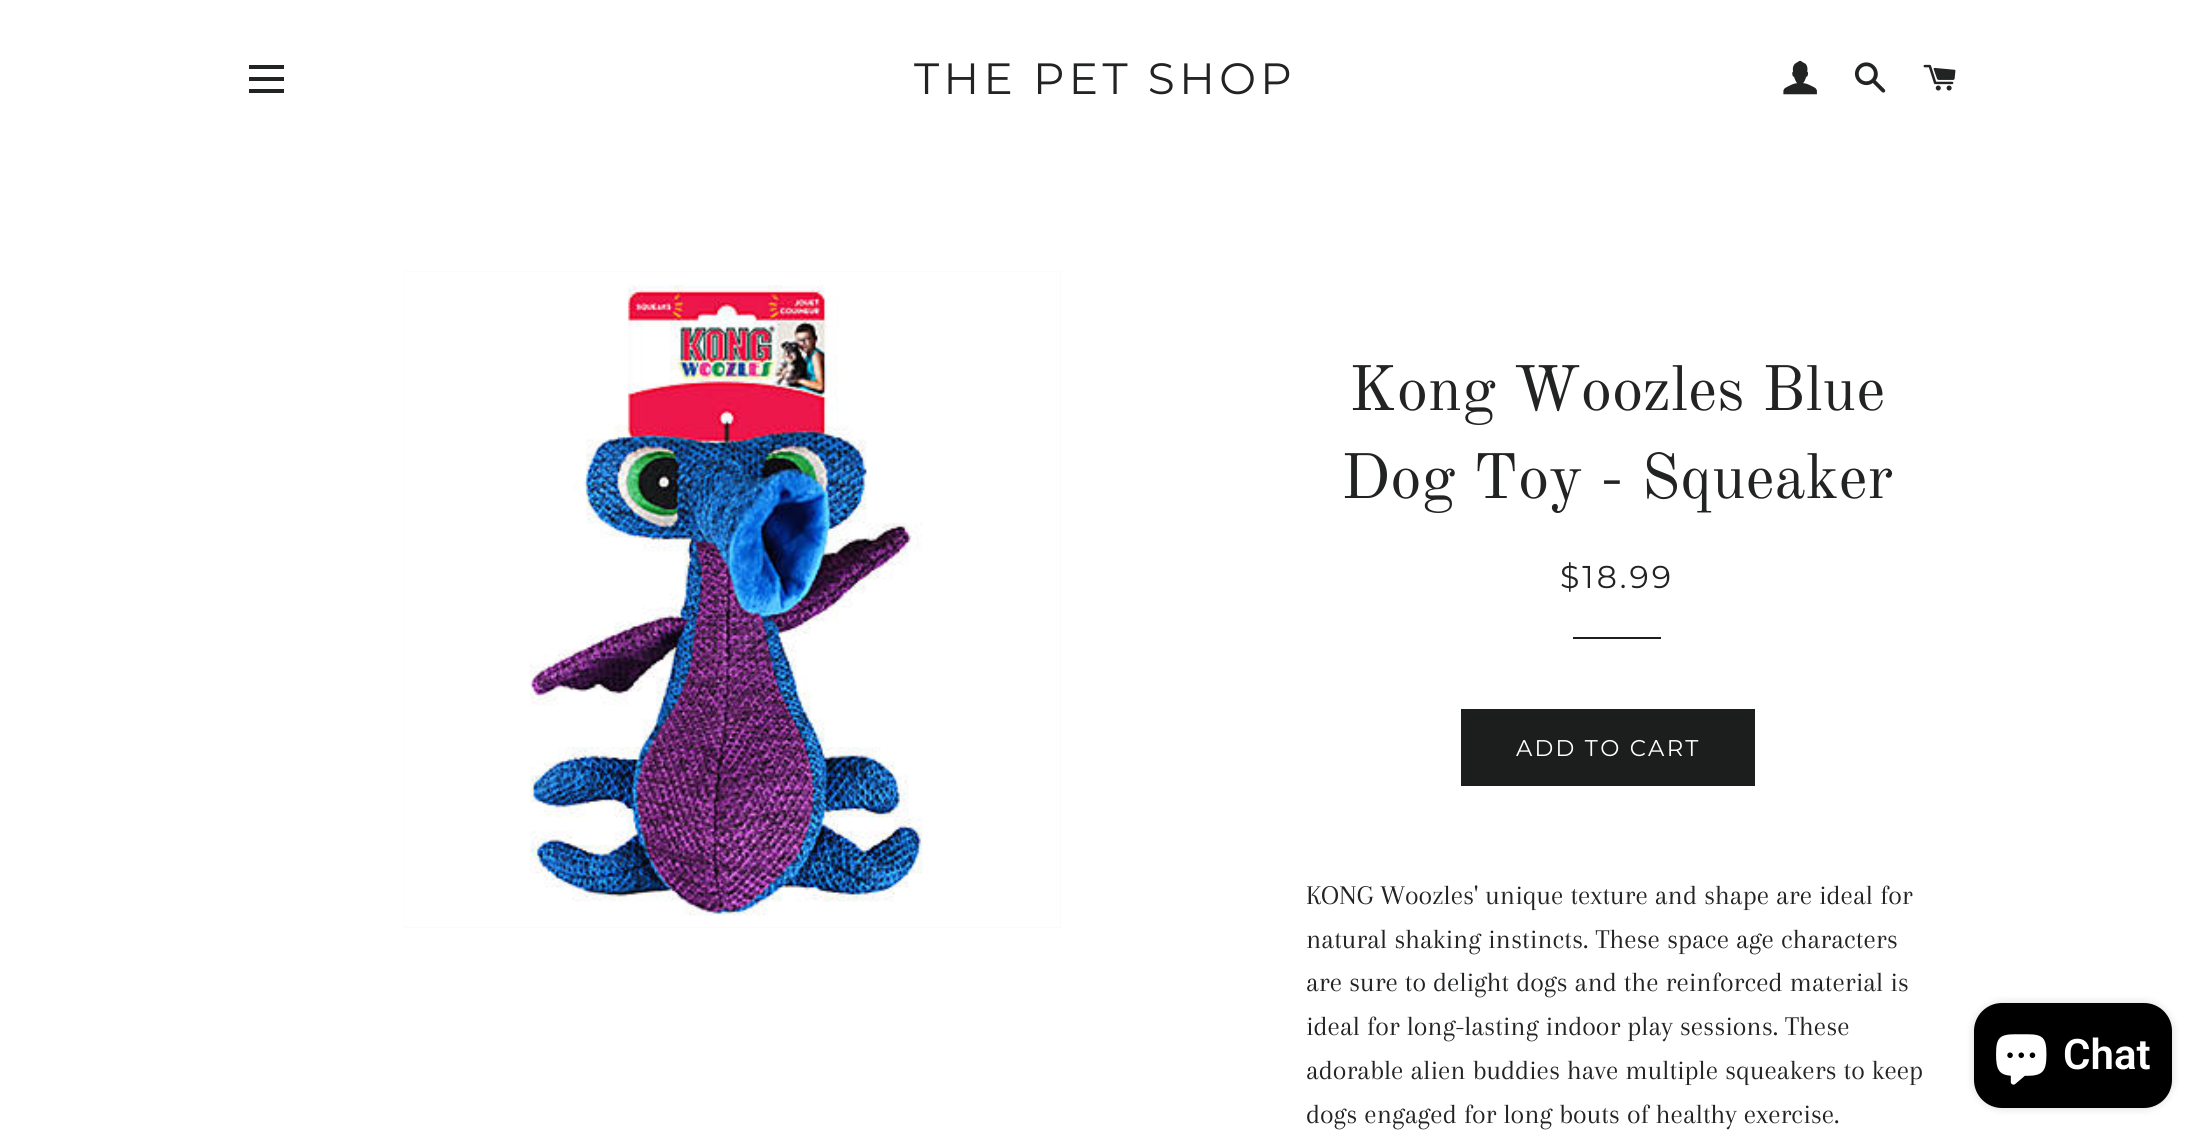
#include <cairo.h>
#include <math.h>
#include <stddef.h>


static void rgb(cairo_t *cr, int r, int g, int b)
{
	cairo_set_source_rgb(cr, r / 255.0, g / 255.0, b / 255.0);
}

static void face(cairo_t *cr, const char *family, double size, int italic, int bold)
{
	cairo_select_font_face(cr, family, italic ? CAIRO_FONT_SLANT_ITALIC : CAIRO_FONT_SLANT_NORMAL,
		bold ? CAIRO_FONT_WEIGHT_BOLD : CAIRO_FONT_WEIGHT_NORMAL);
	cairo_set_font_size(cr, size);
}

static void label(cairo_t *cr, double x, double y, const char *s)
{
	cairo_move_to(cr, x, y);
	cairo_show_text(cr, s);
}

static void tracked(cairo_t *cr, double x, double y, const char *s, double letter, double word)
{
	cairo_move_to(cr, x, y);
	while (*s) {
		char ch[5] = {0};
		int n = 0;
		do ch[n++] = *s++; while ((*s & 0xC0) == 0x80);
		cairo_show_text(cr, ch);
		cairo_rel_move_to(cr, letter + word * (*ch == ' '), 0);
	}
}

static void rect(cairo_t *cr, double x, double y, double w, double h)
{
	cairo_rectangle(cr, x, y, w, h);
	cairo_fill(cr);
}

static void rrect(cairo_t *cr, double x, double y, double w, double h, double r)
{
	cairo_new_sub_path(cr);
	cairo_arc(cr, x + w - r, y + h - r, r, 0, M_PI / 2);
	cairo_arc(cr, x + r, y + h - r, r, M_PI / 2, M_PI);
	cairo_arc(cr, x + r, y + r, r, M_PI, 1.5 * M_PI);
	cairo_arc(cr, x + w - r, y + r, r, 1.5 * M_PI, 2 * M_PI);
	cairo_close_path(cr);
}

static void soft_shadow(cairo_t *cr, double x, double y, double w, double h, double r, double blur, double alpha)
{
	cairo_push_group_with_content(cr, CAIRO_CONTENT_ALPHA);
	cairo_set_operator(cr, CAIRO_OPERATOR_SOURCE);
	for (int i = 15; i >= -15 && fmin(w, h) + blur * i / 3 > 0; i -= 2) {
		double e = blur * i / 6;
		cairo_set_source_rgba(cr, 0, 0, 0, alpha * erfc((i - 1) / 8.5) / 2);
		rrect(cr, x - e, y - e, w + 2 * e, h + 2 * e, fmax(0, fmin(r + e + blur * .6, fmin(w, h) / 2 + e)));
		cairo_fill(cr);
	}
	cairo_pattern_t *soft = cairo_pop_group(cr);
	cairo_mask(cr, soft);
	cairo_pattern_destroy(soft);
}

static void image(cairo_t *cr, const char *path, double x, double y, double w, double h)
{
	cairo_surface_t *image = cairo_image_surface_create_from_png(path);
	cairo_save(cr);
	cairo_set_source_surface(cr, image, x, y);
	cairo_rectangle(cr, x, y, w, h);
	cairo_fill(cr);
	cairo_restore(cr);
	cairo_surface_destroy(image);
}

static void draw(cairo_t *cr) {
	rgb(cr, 255, 255, 255);
	cairo_paint(cr);
	rgb(cr, 34, 35, 35);
	rect(cr, 249, 65, 35, 4);
	rect(cr, 249, 77, 35, 4);
	rect(cr, 249, 89, 35, 4);
	face(cr, "Montserrat Thin", 43.75, 0, 0);
	tracked(cr, 914, 94, "THE PET SHOP", 4.4, 0);
	image(cr, "image0.png", 1783, 60, 34, 35);
	image(cr, "image1.png", 1854, 62, 32, 31);
	image(cr, "image2.png", 1923, 64, 33, 27);
	rgb(cr, 247, 247, 247);
	rect(cr, 404, 271, 657, 657);
	image(cr, "image3.png", 404, 271, 657, 657);
	face(cr, "Old Standard TT", 63, 0, 0);
	rgb(cr, 34, 35, 35);
	label(cr, 1349, 410, "Kong Woozles Blue");
	label(cr, 1341, 498, "Dog Toy - Squeaker");
	face(cr, "Montserrat Thin", 31.5, 0, 0);
	tracked(cr, 1560, 588, "$18.99", 3, 0);
	rgb(cr, 28, 29, 29);
	rect(cr, 1573, 637, 88, 2);
	rect(cr, 1461, 709, 294, 77);
	face(cr, "Montserrat Thin", 22.75, 0, 0);
	rgb(cr, 255, 255, 255);
	tracked(cr, 1516, 756, "ADD TO CART", 2.25, 0);
	face(cr, "Arapey", 28, 0, 0);
	rgb(cr, 34, 35, 35);
	label(cr, 1306, 904, "KONG Woozles' unique texture and shape are ideal for");
	label(cr, 1306, 948, "natural shaking instincts. These space age characters");
	label(cr, 1306, 991, "are sure to delight dogs and the reinforced material is");
	label(cr, 1306, 1035, "ideal for long-lasting indoor play sessions. These");
	label(cr, 1306, 1079, "adorable alien buddies have multiple squeakers to keep");
	label(cr, 1306, 1123, "dogs engaged for long bouts of healthy exercise.");
	rgb(cr, 0, 0, 0);
	soft_shadow(cr, 1974, 1003, 198, 105, 28, 4.5, 0.15);
	rgb(cr, 0, 0, 0);
	rrect(cr, 1974, 1003, 198, 105, 28);
	cairo_fill(cr);
	image(cr, "image4.png", 1996, 1034, 51, 51);
	face(cr, "Roboto SemiBold", 42, 0, 0);
	rgb(cr, 255, 255, 255);
	label(cr, 2063, 1069, "Chat");
}

int main(void) {
	cairo_surface_t *surface = cairo_image_surface_create(CAIRO_FORMAT_RGB24, 2210, 1144);
	cairo_t *cr = cairo_create(surface);
	cairo_font_options_t *options = cairo_font_options_create();
	cairo_font_options_set_hint_metrics(options, CAIRO_HINT_METRICS_OFF);
	cairo_font_options_set_hint_style(options, CAIRO_HINT_STYLE_NONE);
	cairo_set_font_options(cr, options);
	cairo_set_miter_limit(cr, 4);
	draw(cr);
	cairo_surface_write_to_png(surface, "render.png");
	cairo_font_options_destroy(options);
	cairo_destroy(cr);
	cairo_surface_destroy(surface);
	return 0;
}
